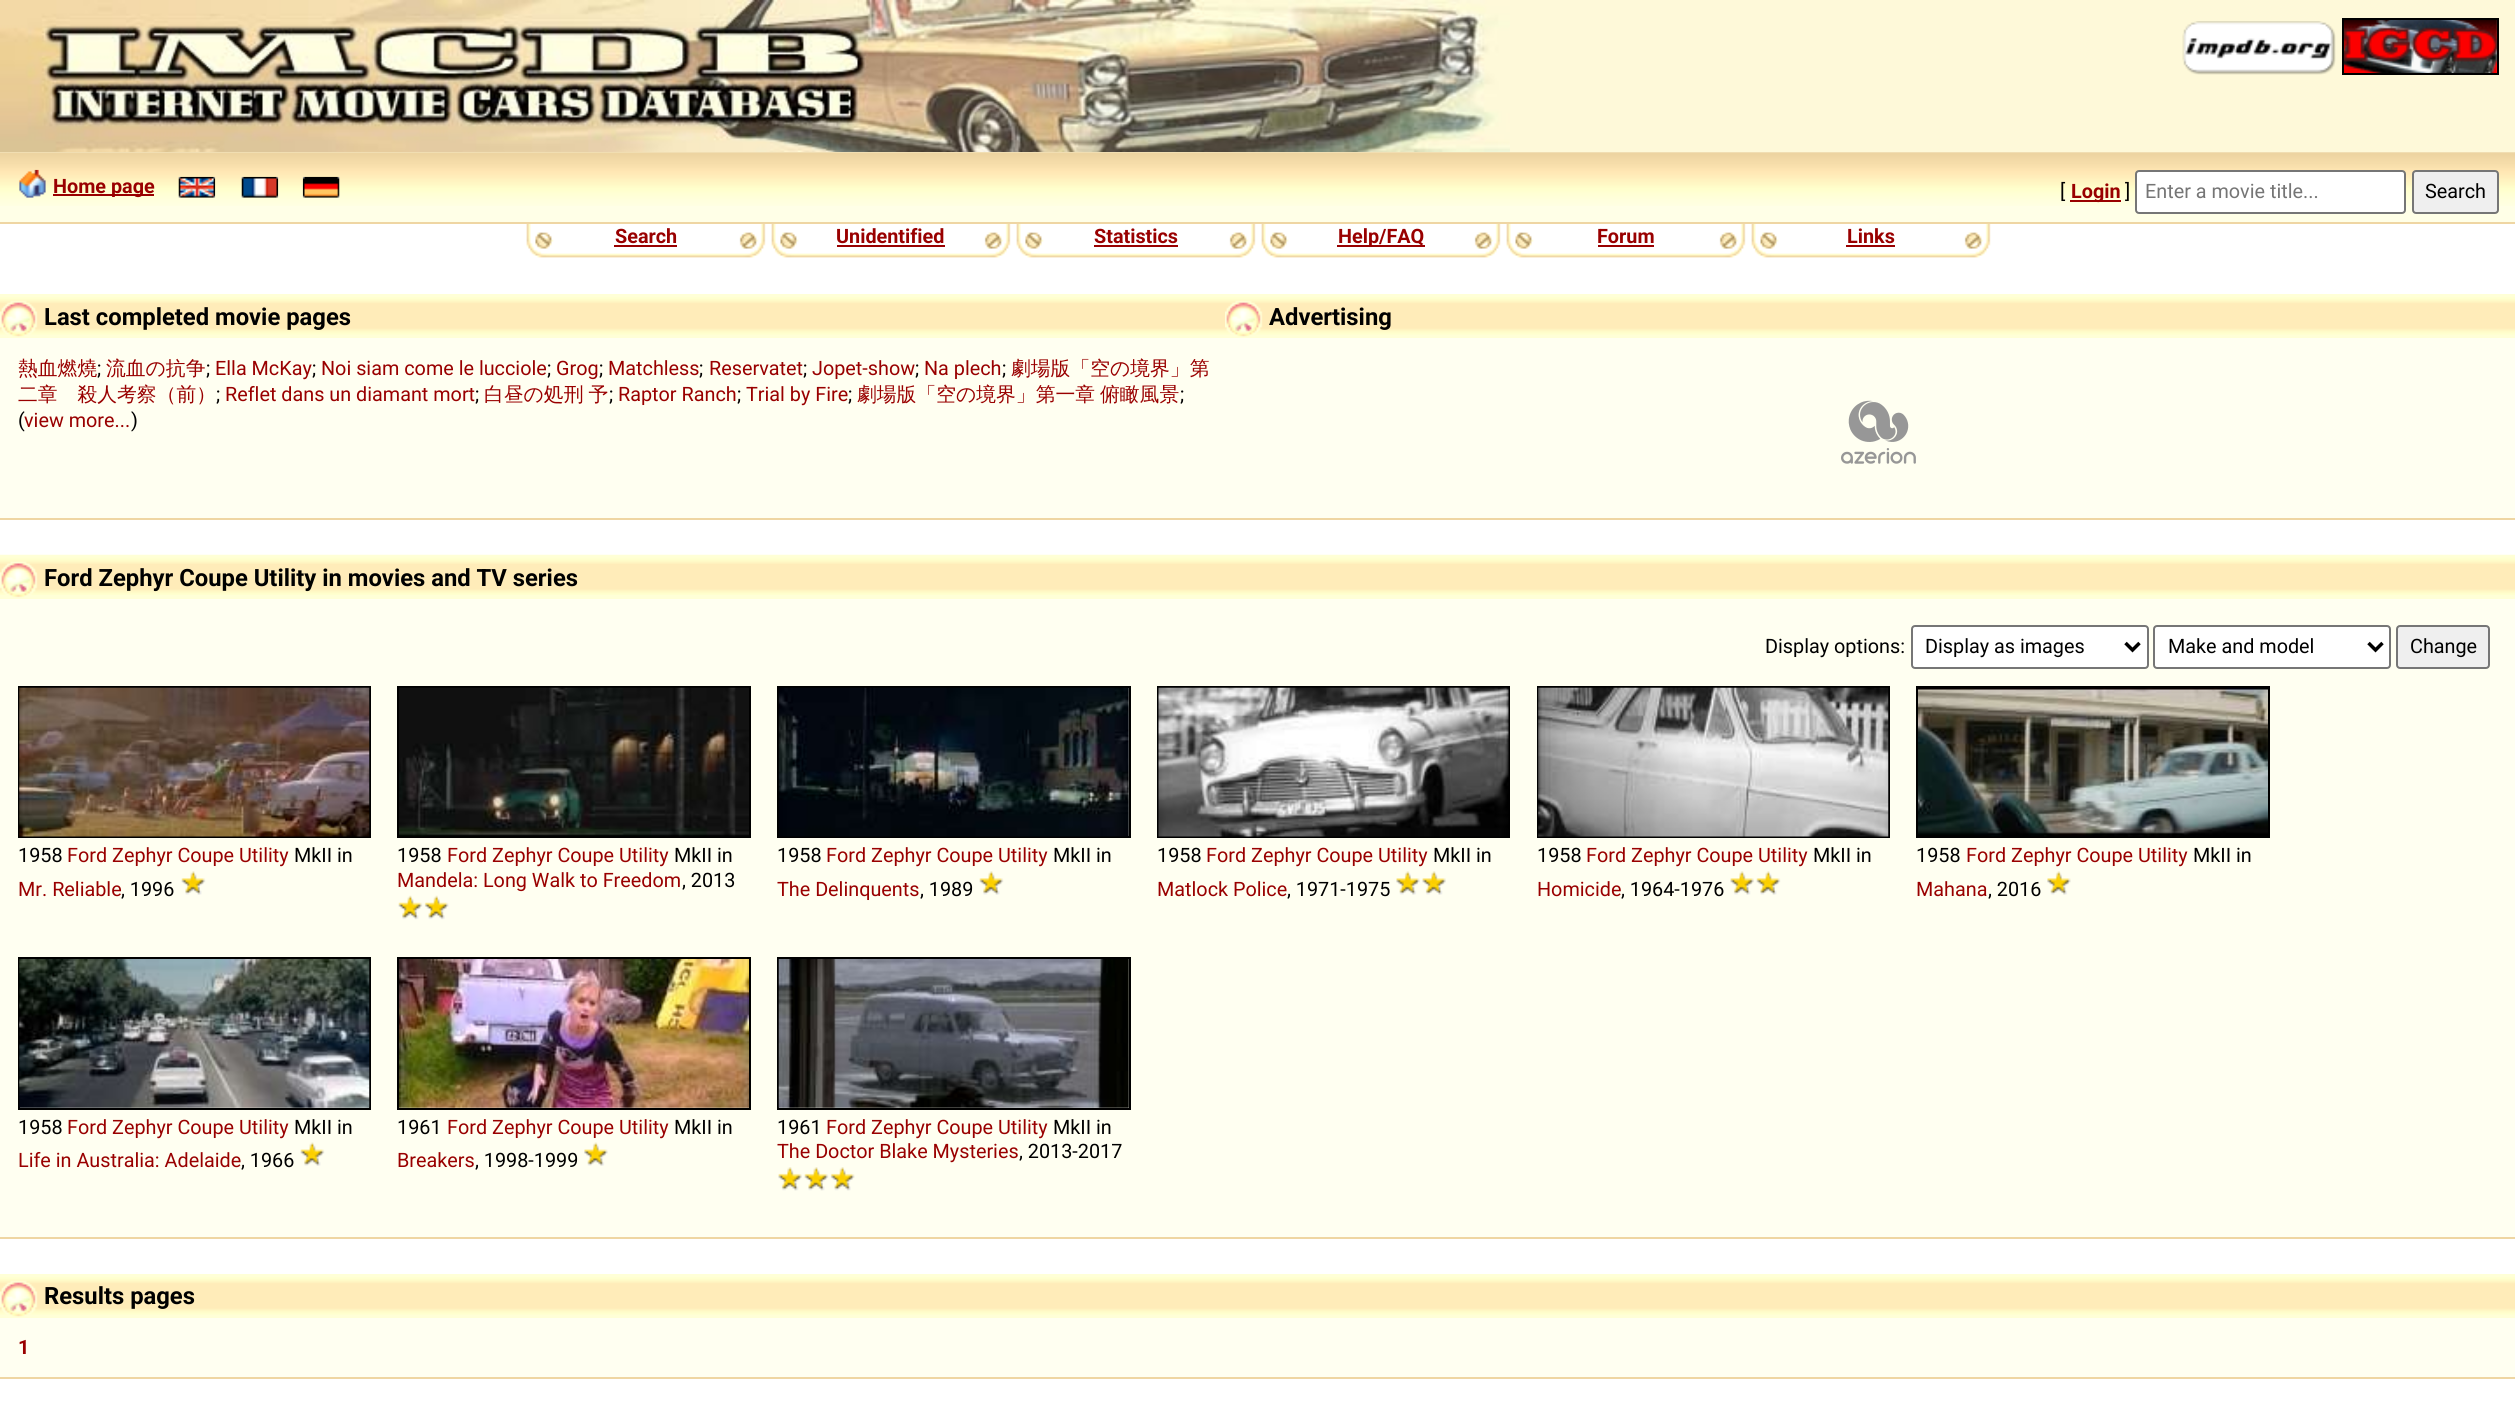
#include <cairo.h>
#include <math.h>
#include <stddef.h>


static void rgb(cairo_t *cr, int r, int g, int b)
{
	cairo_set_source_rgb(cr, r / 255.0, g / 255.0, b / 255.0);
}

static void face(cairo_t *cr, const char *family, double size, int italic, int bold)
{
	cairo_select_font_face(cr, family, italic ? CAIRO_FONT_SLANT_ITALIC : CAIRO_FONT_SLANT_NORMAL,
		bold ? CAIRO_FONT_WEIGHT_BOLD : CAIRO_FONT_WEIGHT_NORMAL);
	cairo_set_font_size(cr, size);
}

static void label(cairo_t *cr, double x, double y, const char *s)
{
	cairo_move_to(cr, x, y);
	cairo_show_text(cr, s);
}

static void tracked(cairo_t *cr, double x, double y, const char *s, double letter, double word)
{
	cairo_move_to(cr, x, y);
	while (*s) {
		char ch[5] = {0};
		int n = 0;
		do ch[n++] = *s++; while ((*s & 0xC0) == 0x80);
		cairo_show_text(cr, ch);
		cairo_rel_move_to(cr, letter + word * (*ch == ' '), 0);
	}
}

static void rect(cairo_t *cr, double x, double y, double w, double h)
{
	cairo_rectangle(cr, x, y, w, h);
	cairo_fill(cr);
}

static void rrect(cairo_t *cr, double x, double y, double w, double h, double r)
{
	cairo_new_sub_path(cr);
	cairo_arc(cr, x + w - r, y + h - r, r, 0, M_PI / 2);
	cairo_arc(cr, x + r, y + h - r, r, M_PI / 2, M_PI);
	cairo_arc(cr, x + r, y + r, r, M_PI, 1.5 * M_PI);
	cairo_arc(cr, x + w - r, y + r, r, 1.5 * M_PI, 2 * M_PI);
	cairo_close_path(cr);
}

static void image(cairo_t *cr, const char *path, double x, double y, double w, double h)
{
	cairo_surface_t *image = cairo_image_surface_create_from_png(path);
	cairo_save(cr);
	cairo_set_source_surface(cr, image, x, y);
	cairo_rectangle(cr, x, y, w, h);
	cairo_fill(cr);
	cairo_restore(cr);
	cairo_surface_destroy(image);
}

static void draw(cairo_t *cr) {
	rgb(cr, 255, 255, 255);
	cairo_paint(cr);
	rgb(cr, 254, 249, 217);
	rect(cr, 1510, 0, 1005, 152);
	image(cr, "image0.png", 0, 0, 1510, 152);
	image(cr, "image2.png", 2344, 20, 153, 53);
	cairo_rectangle(cr, 2343, 19, 155, 55);
	rgb(cr, 0, 0, 0);
	cairo_stroke(cr);
	image(cr, "image1.png", 2182, 21, 154, 54);
	rgb(cr, 255, 255, 231);
	rect(cr, 0, 152, 2515, 70);
	image(cr, "image3.png", 0, 152, 2515, 54);
	rgb(cr, 239, 214, 163);
	rect(cr, 0, 222, 2515, 2);
	image(cr, "image4.png", 19, 169, 27, 29);
	rgb(cr, 153, 0, 0);
	rect(cr, 53, 194, 101, 2);
	face(cr, "Roboto", 19.8, 0, 1);
	label(cr, 53, 193, "Home page");
	image(cr, "image5.png", 178, 176, 38, 22);
	image(cr, "image6.png", 241, 176, 38, 22);
	image(cr, "image7.png", 302, 176, 38, 22);
	face(cr, "Roboto", 19.8, 0, 0);
	rgb(cr, 0, 0, 0);
	label(cr, 2060, 198, "[");
	rgb(cr, 153, 0, 0);
	rect(cr, 2070, 200, 51, 2);
	face(cr, "Roboto", 19.8, 0, 1);
	label(cr, 2071, 198, "Login");
	face(cr, "Roboto", 19.8, 0, 0);
	rgb(cr, 0, 0, 0);
	label(cr, 2125, 198, "]");
	rgb(cr, 255, 255, 255);
	rrect(cr, 2136, 171, 269, 42, 3);
	cairo_fill_preserve(cr);
	rgb(cr, 118, 118, 118);
	cairo_stroke(cr);
	rgb(cr, 117, 117, 117);
	label(cr, 2145, 198, "Enter a movie title...");
	rgb(cr, 239, 239, 239);
	rrect(cr, 2413, 171, 85, 42, 3);
	cairo_fill_preserve(cr);
	rgb(cr, 118, 118, 118);
	cairo_stroke(cr);
	rgb(cr, 0, 0, 0);
	label(cr, 2425, 198, "Search");
	image(cr, "image8.png", 526, 224, 240, 34);
	face(cr, "Roboto", 19.8, 0, 1);
	rgb(cr, 153, 0, 0);
	label(cr, 615, 243, "Search");
	rect(cr, 614, 245, 63, 2);
	image(cr, "image8.png", 771, 224, 240, 34);
	label(cr, 836, 243, "Unidentified");
	rect(cr, 837, 245, 108, 2);
	image(cr, "image8.png", 1016, 224, 240, 34);
	label(cr, 1094, 243, "Statistics");
	rect(cr, 1094, 245, 84, 2);
	image(cr, "image8.png", 1261, 224, 240, 34);
	rect(cr, 1337, 245, 88, 2);
	label(cr, 1338, 243, "Help/FAQ");
	image(cr, "image9.png", 1506, 224, 240, 34);
	label(cr, 1597, 243, "Forum");
	rect(cr, 1598, 245, 56, 2);
	image(cr, "image10.png", 1751, 224, 240, 34);
	label(cr, 1847, 243, "Links");
	rect(cr, 1846, 245, 49, 2);
	rgb(cr, 255, 255, 241);
	rect(cr, 0, 338, 2515, 180);
	rgb(cr, 239, 214, 163);
	rect(cr, 0, 518, 2515, 2);
	rgb(cr, 255, 255, 215);
	rect(cr, 0, 294, 2515, 44);
	image(cr, "image11.png", 0, 297, 1225, 38);
	image(cr, "image12.png", 0, 300, 38, 37);
	face(cr, "Roboto", 23.8, 0, 1);
	rgb(cr, 0, 0, 0);
	label(cr, 44, 325, "Last completed movie pages");
	face(cr, "WenQuanYi Zen Hei Medium", 19.8, 0, 0);
	rgb(cr, 153, 0, 0);
	label(cr, 18, 375, "熱血燃燒");
	face(cr, "Roboto", 19.8, 0, 0);
	rgb(cr, 0, 0, 0);
	label(cr, 97, 375, ";");
	face(cr, "WenQuanYi Zen Hei Medium", 19.8, 0, 0);
	rgb(cr, 153, 0, 0);
	label(cr, 106, 375, "流血の抗争");
	face(cr, "Roboto", 19.8, 0, 0);
	rgb(cr, 0, 0, 0);
	label(cr, 206, 375, ";");
	rgb(cr, 153, 0, 0);
	label(cr, 215, 375, "Ella McKay");
	rgb(cr, 0, 0, 0);
	label(cr, 312, 375, ";");
	rgb(cr, 153, 0, 0);
	label(cr, 321, 375, "Noi siam come le lucciole");
	rgb(cr, 0, 0, 0);
	label(cr, 547, 375, ";");
	rgb(cr, 153, 0, 0);
	label(cr, 556, 375, "Grog");
	rgb(cr, 0, 0, 0);
	label(cr, 599, 375, ";");
	rgb(cr, 153, 0, 0);
	label(cr, 608, 375, "Matchless");
	rgb(cr, 0, 0, 0);
	label(cr, 699, 375, ";");
	rgb(cr, 153, 0, 0);
	label(cr, 709, 375, "Reservatet");
	rgb(cr, 0, 0, 0);
	label(cr, 803, 375, ";");
	rgb(cr, 153, 0, 0);
	label(cr, 812, 375, "Jopet-show");
	rgb(cr, 0, 0, 0);
	label(cr, 915, 375, ";");
	rgb(cr, 153, 0, 0);
	label(cr, 924, 375, "Na plech");
	rgb(cr, 0, 0, 0);
	label(cr, 1002, 375, ";");
	face(cr, "WenQuanYi Zen Hei Medium", 19.8, 0, 0);
	rgb(cr, 153, 0, 0);
	label(cr, 1011, 375, "劇場版「空の境界」第");
	label(cr, 18, 401, "二章　殺人考察（前）");
	face(cr, "Roboto", 19.8, 0, 0);
	rgb(cr, 0, 0, 0);
	label(cr, 216, 401, ";");
	rgb(cr, 153, 0, 0);
	label(cr, 225, 401, "Reflet dans un diamant mort");
	rgb(cr, 0, 0, 0);
	label(cr, 475, 401, ";");
	face(cr, "WenQuanYi Zen Hei Medium", 19.8, 0, 0);
	rgb(cr, 153, 0, 0);
	tracked(cr, 484, 401, "白昼の処刑 予", 0, -1);
	face(cr, "Roboto", 19.8, 0, 0);
	rgb(cr, 0, 0, 0);
	label(cr, 609, 401, ";");
	rgb(cr, 153, 0, 0);
	label(cr, 618, 401, "Raptor Ranch");
	rgb(cr, 0, 0, 0);
	label(cr, 737, 401, ";");
	rgb(cr, 153, 0, 0);
	label(cr, 746, 401, "Trial by Fire");
	rgb(cr, 0, 0, 0);
	label(cr, 848, 401, ";");
	face(cr, "WenQuanYi Zen Hei Medium", 19.8, 0, 0);
	rgb(cr, 153, 0, 0);
	tracked(cr, 857, 401, "劇場版「空の境界」第一章 俯瞰風景", 0, -1);
	face(cr, "Roboto", 19.8, 0, 0);
	rgb(cr, 0, 0, 0);
	label(cr, 1180, 401, ";");
	label(cr, 18, 427, "(");
	rgb(cr, 153, 0, 0);
	label(cr, 24, 427, "view more...");
	rgb(cr, 0, 0, 0);
	label(cr, 131, 427, ")");
	image(cr, "image13.png", 1225, 297, 1290, 38);
	image(cr, "image12.png", 1225, 300, 38, 37);
	face(cr, "Roboto", 23.8, 0, 1);
	label(cr, 1269, 325, "Advertising");
	image(cr, "image14.png", 1841, 400, 75, 64);
	rgb(cr, 255, 255, 241);
	rect(cr, 0, 599, 2515, 638);
	rgb(cr, 239, 214, 163);
	rect(cr, 0, 1237, 2515, 2);
	rgb(cr, 255, 255, 215);
	rect(cr, 0, 595, 2515, 4);
	image(cr, "image15.png", 0, 554, 2515, 41);
	image(cr, "image16.png", 0, 561, 38, 37);
	rgb(cr, 0, 0, 0);
	label(cr, 44, 586, "Ford Zephyr Coupe Utility in movies and TV series");
	face(cr, "Roboto", 19.8, 0, 0);
	label(cr, 1765, 653, "Display options:");
	rgb(cr, 255, 255, 255);
	rrect(cr, 1912, 626, 236, 42, 3);
	cairo_fill_preserve(cr);
	rgb(cr, 118, 118, 118);
	cairo_stroke(cr);
	cairo_new_path(cr);
	cairo_move_to(cr, 2125.5, 643);
	cairo_line_to(cr, 2132.5, 650);
	cairo_line_to(cr, 2139.5, 643);
	rgb(cr, 0, 0, 0);
	cairo_set_line_width(cr, 3.5);
	cairo_stroke(cr);
	label(cr, 1925, 653, "Display as images");
	rgb(cr, 255, 255, 255);
	rrect(cr, 2154, 626, 236, 42, 3);
	cairo_fill_preserve(cr);
	rgb(cr, 118, 118, 118);
	cairo_set_line_width(cr, 2);
	cairo_stroke(cr);
	cairo_new_path(cr);
	cairo_move_to(cr, 2368.5, 643);
	cairo_line_to(cr, 2375.5, 650);
	cairo_line_to(cr, 2382.5, 643);
	rgb(cr, 0, 0, 0);
	cairo_set_line_width(cr, 3.5);
	cairo_stroke(cr);
	label(cr, 2168, 653, "Make and model");
	rgb(cr, 239, 239, 239);
	rrect(cr, 2397, 626, 92, 42, 3);
	cairo_fill_preserve(cr);
	rgb(cr, 118, 118, 118);
	cairo_set_line_width(cr, 2);
	cairo_stroke(cr);
	rgb(cr, 0, 0, 0);
	label(cr, 2410, 653, "Change");
	cairo_rectangle(cr, 19, 687, 351, 150);
	cairo_stroke(cr);
	image(cr, "image17.png", 19, 687, 351, 150);
	label(cr, 18, 862, "1958");
	rgb(cr, 153, 0, 0);
	label(cr, 67, 862, "Ford Zephyr Coupe Utility");
	rgb(cr, 0, 0, 0);
	label(cr, 294, 862, "MkII in");
	rgb(cr, 153, 0, 0);
	label(cr, 18, 896, "Mr. Reliable");
	rgb(cr, 0, 0, 0);
	label(cr, 121, 896, ", 1996");
	image(cr, "image18.png", 181, 871, 25, 24);
	cairo_rectangle(cr, 398, 687, 352, 150);
	cairo_stroke(cr);
	image(cr, "image19.png", 399, 687, 350, 150);
	label(cr, 397, 862, "1958");
	rgb(cr, 153, 0, 0);
	label(cr, 447, 862, "Ford Zephyr Coupe Utility");
	rgb(cr, 0, 0, 0);
	label(cr, 674, 862, "MkII in");
	rgb(cr, 153, 0, 0);
	label(cr, 397, 887, "Mandela: Long Walk to Freedom");
	rgb(cr, 0, 0, 0);
	label(cr, 682, 887, ", 2013");
	image(cr, "image20.png", 398, 895, 25, 25);
	image(cr, "image21.png", 424, 895, 25, 25);
	cairo_rectangle(cr, 778, 687, 352, 150);
	cairo_stroke(cr);
	image(cr, "image22.png", 778, 687, 351, 150);
	label(cr, 777, 862, "1958");
	rgb(cr, 153, 0, 0);
	label(cr, 826, 862, "Ford Zephyr Coupe Utility");
	rgb(cr, 0, 0, 0);
	label(cr, 1053, 862, "MkII in");
	rgb(cr, 153, 0, 0);
	label(cr, 777, 896, "The Delinquents");
	rgb(cr, 0, 0, 0);
	label(cr, 920, 896, ", 1989");
	image(cr, "image23.png", 979, 871, 25, 24);
	cairo_rectangle(cr, 1158, 687, 351, 150);
	cairo_stroke(cr);
	image(cr, "image24.png", 1158, 687, 351, 150);
	label(cr, 1157, 862, "1958");
	rgb(cr, 153, 0, 0);
	label(cr, 1206, 862, "Ford Zephyr Coupe Utility");
	rgb(cr, 0, 0, 0);
	label(cr, 1433, 862, "MkII in");
	rgb(cr, 153, 0, 0);
	label(cr, 1157, 896, "Matlock Police");
	rgb(cr, 0, 0, 0);
	label(cr, 1287, 896, ", 1971-1975");
	image(cr, "image25.png", 1396, 871, 24, 24);
	image(cr, "image26.png", 1422, 871, 24, 24);
	cairo_rectangle(cr, 1538, 687, 351, 150);
	cairo_stroke(cr);
	image(cr, "image27.png", 1538, 687, 351, 150);
	label(cr, 1537, 862, "1958");
	rgb(cr, 153, 0, 0);
	label(cr, 1586, 862, "Ford Zephyr Coupe Utility");
	rgb(cr, 0, 0, 0);
	label(cr, 1813, 862, "MkII in");
	rgb(cr, 153, 0, 0);
	label(cr, 1537, 896, "Homicide");
	rgb(cr, 0, 0, 0);
	label(cr, 1621, 896, ", 1964-1976");
	image(cr, "image26.png", 1730, 871, 24, 24);
	image(cr, "image18.png", 1756, 871, 25, 24);
	cairo_rectangle(cr, 1917, 687, 352, 150);
	cairo_stroke(cr);
	image(cr, "image28.png", 1918, 688, 350, 149);
	label(cr, 1916, 862, "1958");
	rgb(cr, 153, 0, 0);
	label(cr, 1966, 862, "Ford Zephyr Coupe Utility");
	rgb(cr, 0, 0, 0);
	label(cr, 2193, 862, "MkII in");
	rgb(cr, 153, 0, 0);
	label(cr, 1916, 896, "Mahana");
	rgb(cr, 0, 0, 0);
	label(cr, 1988, 896, ", 2016");
	image(cr, "image29.png", 2047, 871, 24, 24);
	cairo_rectangle(cr, 19, 958, 351, 151);
	cairo_stroke(cr);
	image(cr, "image30.png", 19, 959, 351, 149);
	label(cr, 18, 1134, "1958");
	rgb(cr, 153, 0, 0);
	label(cr, 67, 1134, "Ford Zephyr Coupe Utility");
	rgb(cr, 0, 0, 0);
	label(cr, 294, 1134, "MkII in");
	rgb(cr, 153, 0, 0);
	label(cr, 18, 1167, "Life in Australia: Adelaide");
	rgb(cr, 0, 0, 0);
	label(cr, 241, 1167, ", 1966");
	image(cr, "image31.png", 300, 1142, 25, 24);
	cairo_rectangle(cr, 398, 958, 352, 151);
	cairo_stroke(cr);
	image(cr, "image32.png", 399, 959, 350, 149);
	label(cr, 397, 1134, "1961");
	rgb(cr, 153, 0, 0);
	label(cr, 447, 1134, "Ford Zephyr Coupe Utility");
	rgb(cr, 0, 0, 0);
	label(cr, 674, 1134, "MkII in");
	rgb(cr, 153, 0, 0);
	label(cr, 397, 1167, "Breakers");
	rgb(cr, 0, 0, 0);
	label(cr, 475, 1167, ", 1998-1999");
	image(cr, "image33.png", 584, 1142, 24, 24);
	cairo_rectangle(cr, 778, 958, 352, 151);
	cairo_stroke(cr);
	image(cr, "image34.png", 778, 959, 351, 149);
	label(cr, 777, 1134, "1961");
	rgb(cr, 153, 0, 0);
	label(cr, 826, 1134, "Ford Zephyr Coupe Utility");
	rgb(cr, 0, 0, 0);
	label(cr, 1053, 1134, "MkII in");
	rgb(cr, 153, 0, 0);
	label(cr, 777, 1158, "The Doctor Blake Mysteries");
	rgb(cr, 0, 0, 0);
	label(cr, 1019, 1158, ", 2013-2017");
	image(cr, "image35.png", 778, 1167, 24, 24);
	image(cr, "image36.png", 804, 1167, 25, 24);
	image(cr, "image37.png", 830, 1167, 25, 24);
	rgb(cr, 255, 255, 241);
	rect(cr, 0, 1318, 2515, 59);
	rgb(cr, 239, 214, 163);
	rect(cr, 0, 1377, 2515, 2);
	rgb(cr, 255, 255, 215);
	rect(cr, 0, 1274, 2515, 44);
	image(cr, "image38.png", 0, 1277, 2515, 38);
	image(cr, "image12.png", 0, 1280, 38, 37);
	face(cr, "Roboto", 23.8, 0, 1);
	rgb(cr, 0, 0, 0);
	label(cr, 44, 1304, "Results pages");
	face(cr, "Roboto", 19.8, 0, 1);
	rgb(cr, 153, 0, 0);
	label(cr, 18, 1354, "1");
}

int main(void) {
	cairo_surface_t *surface = cairo_image_surface_create(CAIRO_FORMAT_RGB24, 2515, 1405);
	cairo_t *cr = cairo_create(surface);
	cairo_font_options_t *options = cairo_font_options_create();
	cairo_font_options_set_hint_metrics(options, CAIRO_HINT_METRICS_OFF);
	cairo_font_options_set_hint_style(options, CAIRO_HINT_STYLE_NONE);
	cairo_set_font_options(cr, options);
	cairo_set_miter_limit(cr, 4);
	draw(cr);
	cairo_surface_write_to_png(surface, "render.png");
	cairo_font_options_destroy(options);
	cairo_destroy(cr);
	cairo_surface_destroy(surface);
	return 0;
}
